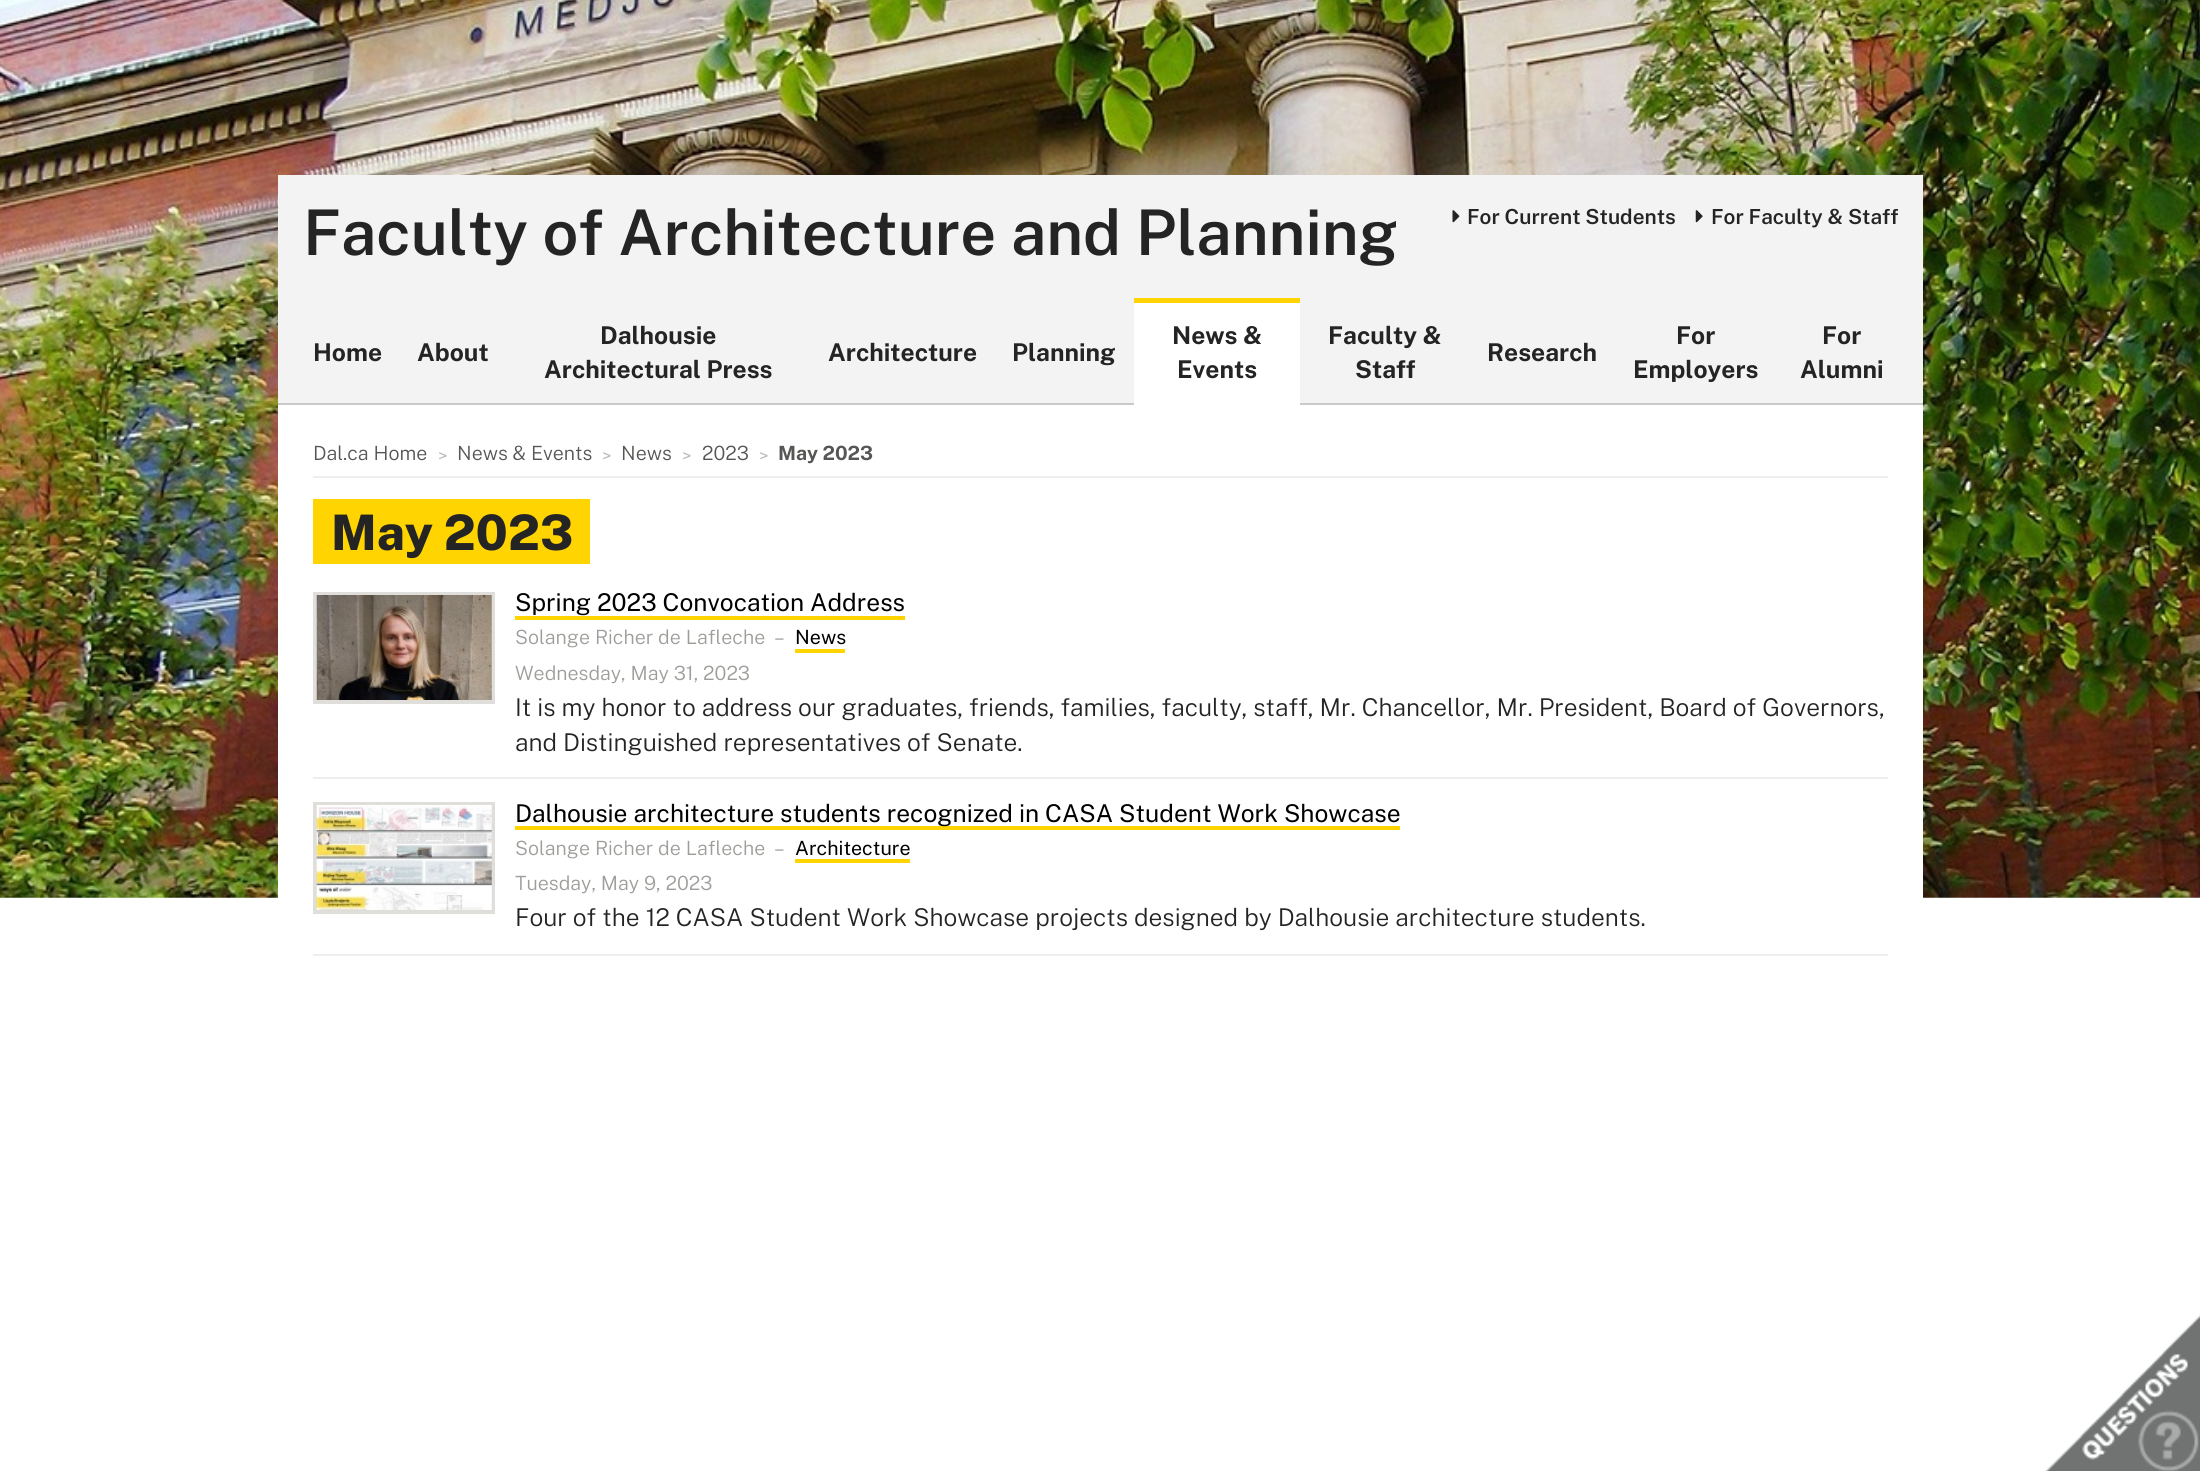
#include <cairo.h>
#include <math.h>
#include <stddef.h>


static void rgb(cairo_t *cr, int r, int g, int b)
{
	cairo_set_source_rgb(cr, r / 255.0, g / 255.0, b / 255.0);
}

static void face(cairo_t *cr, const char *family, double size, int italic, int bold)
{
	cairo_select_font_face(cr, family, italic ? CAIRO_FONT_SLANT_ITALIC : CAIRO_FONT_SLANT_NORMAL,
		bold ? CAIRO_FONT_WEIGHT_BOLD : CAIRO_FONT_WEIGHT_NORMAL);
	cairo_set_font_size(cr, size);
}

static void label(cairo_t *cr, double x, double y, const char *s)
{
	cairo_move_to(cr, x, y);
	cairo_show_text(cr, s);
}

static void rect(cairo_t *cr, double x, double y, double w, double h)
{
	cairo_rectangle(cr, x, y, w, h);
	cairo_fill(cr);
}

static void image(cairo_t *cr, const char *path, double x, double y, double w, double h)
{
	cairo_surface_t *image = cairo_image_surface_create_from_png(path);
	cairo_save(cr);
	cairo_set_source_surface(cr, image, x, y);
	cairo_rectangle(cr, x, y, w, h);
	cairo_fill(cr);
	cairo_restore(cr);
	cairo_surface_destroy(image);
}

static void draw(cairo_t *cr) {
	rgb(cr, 255, 255, 255);
	cairo_paint(cr);
	image(cr, "image0.png", 0, 0, 2200, 898);
	rgb(cr, 243, 243, 243);
	rect(cr, 278, 175, 1645, 228);
	rgb(cr, 255, 255, 255);
	rect(cr, 278, 405, 1645, 493);
	face(cr, "Public Sans SemiBold", 63, 0, 0);
	rgb(cr, 36, 36, 36);
	label(cr, 303, 255, "Faculty of Architecture and Planning");
	image(cr, "image1.png", 1452, 210, 8, 13);
	face(cr, "Public Sans SemiBold", 20.75, 0, 0);
	label(cr, 1467, 224, "For Current Students");
	image(cr, "image2.png", 1695, 210, 8, 13);
	label(cr, 1711, 224, "For Faculty & Staff");
	rgb(cr, 201, 201, 201);
	rect(cr, 278, 403, 1645, 2);
	face(cr, "Public Sans", 24.5, 0, 1);
	rgb(cr, 36, 36, 36);
	label(cr, 313, 361, "Home");
	label(cr, 417, 361, "About");
	label(cr, 600, 344, "Dalhousie");
	label(cr, 544, 378, "Architectural Press");
	label(cr, 828, 361, "Architecture");
	label(cr, 1012, 361, "Planning");
	rgb(cr, 255, 212, 0);
	rect(cr, 1134, 298, 166, 5);
	rgb(cr, 255, 255, 255);
	rect(cr, 1134, 303, 166, 102);
	rgb(cr, 36, 36, 36);
	label(cr, 1172, 344, "News &");
	label(cr, 1177, 378, "Events");
	label(cr, 1328, 344, "Faculty &");
	label(cr, 1355, 378, "Staff");
	label(cr, 1487, 361, "Research");
	label(cr, 1676, 344, "For");
	label(cr, 1633, 378, "Employers");
	label(cr, 1822, 344, "For");
	label(cr, 1800, 378, "Alumni");
	rgb(cr, 239, 238, 236);
	rect(cr, 313, 476, 1575, 2);
	face(cr, "Public Sans Light", 19.6, 0, 0);
	rgb(cr, 87, 86, 85);
	label(cr, 313, 460, "Dal.ca Home");
	face(cr, "Public Sans Light", 18, 0, 0);
	rgb(cr, 185, 185, 185);
	label(cr, 438, 462, ">");
	face(cr, "Public Sans Light", 19.6, 0, 0);
	rgb(cr, 87, 86, 85);
	label(cr, 457, 460, "News & Events");
	face(cr, "Public Sans Light", 18, 0, 0);
	rgb(cr, 185, 185, 185);
	label(cr, 602, 462, ">");
	face(cr, "Public Sans Light", 19.6, 0, 0);
	rgb(cr, 87, 86, 85);
	label(cr, 621, 460, "News");
	face(cr, "Public Sans Light", 18, 0, 0);
	rgb(cr, 185, 185, 185);
	label(cr, 682, 462, ">");
	face(cr, "Public Sans Light", 19.6, 0, 0);
	rgb(cr, 87, 86, 85);
	label(cr, 702, 460, "2023");
	face(cr, "Public Sans Light", 18, 0, 0);
	rgb(cr, 185, 185, 185);
	label(cr, 759, 462, ">");
	face(cr, "Public Sans", 19.6, 0, 1);
	rgb(cr, 87, 86, 85);
	label(cr, 778, 460, "May 2023");
	rgb(cr, 255, 212, 0);
	rect(cr, 313, 499, 277, 65);
	face(cr, "Public Sans ExtraBold", 49, 0, 0);
	rgb(cr, 36, 36, 36);
	label(cr, 331, 550, "May 2023");
	rgb(cr, 239, 238, 236);
	rect(cr, 313, 777, 1575, 2);
	cairo_rectangle(cr, 315, 594, 178, 108);
	rgb(cr, 223, 222, 218);
	cairo_set_line_width(cr, 4);
	cairo_stroke(cr);
	image(cr, "image3.png", 316, 595, 176, 105);
	face(cr, "Public Sans", 24.5, 0, 0);
	rgb(cr, 0, 0, 0);
	label(cr, 515, 611, "Spring 2023 Convocation Address");
	rgb(cr, 255, 212, 0);
	rect(cr, 515, 616, 390, 4);
	face(cr, "Public Sans Light", 19.6, 0, 0);
	rgb(cr, 158, 157, 154);
	label(cr, 515, 644, "Solange Richer de Lafleche");
	label(cr, 774, 644, "–");
	face(cr, "Public Sans", 19.6, 0, 0);
	rgb(cr, 0, 0, 0);
	label(cr, 795, 644, "News");
	rgb(cr, 255, 212, 0);
	rect(cr, 795, 649, 50, 4);
	face(cr, "Public Sans Light", 19.6, 0, 0);
	rgb(cr, 158, 157, 154);
	label(cr, 515, 680, "Wednesday, May 31, 2023");
	face(cr, "Public Sans Light", 24.5, 0, 0);
	rgb(cr, 36, 36, 36);
	label(cr, 515, 716, "It is my honor to address our graduates, friends, families, faculty, staff, Mr. Chancellor, Mr. President, Board of Governors,");
	label(cr, 515, 751, "and Distinguished representatives of Senate.");
	rgb(cr, 239, 238, 236);
	rect(cr, 313, 954, 1575, 2);
	cairo_rectangle(cr, 315, 804, 178, 108);
	rgb(cr, 223, 222, 218);
	cairo_stroke(cr);
	image(cr, "image4.png", 316, 805, 176, 105);
	rgb(cr, 255, 212, 0);
	rect(cr, 515, 826, 885, 4);
	face(cr, "Public Sans", 24.5, 0, 0);
	rgb(cr, 0, 0, 0);
	label(cr, 515, 822, "Dalhousie architecture students recognized in CASA Student Work Showcase");
	face(cr, "Public Sans Light", 19.6, 0, 0);
	rgb(cr, 158, 157, 154);
	label(cr, 515, 855, "Solange Richer de Lafleche");
	label(cr, 774, 855, "–");
	face(cr, "Public Sans", 19.6, 0, 0);
	rgb(cr, 0, 0, 0);
	label(cr, 795, 855, "Architecture");
	rgb(cr, 255, 212, 0);
	rect(cr, 795, 859, 115, 4);
	face(cr, "Public Sans Light", 19.6, 0, 0);
	rgb(cr, 158, 157, 154);
	label(cr, 515, 890, "Tuesday, May 9, 2023");
	face(cr, "Public Sans Light", 24.5, 0, 0);
	rgb(cr, 36, 36, 36);
	label(cr, 515, 926, "Four of the 12 CASA Student Work Showcase projects designed by Dalhousie architecture students.");
	image(cr, "image5.png", 2045, 1314, 155, 157);
}

int main(void) {
	cairo_surface_t *surface = cairo_image_surface_create(CAIRO_FORMAT_RGB24, 2200, 1471);
	cairo_t *cr = cairo_create(surface);
	cairo_font_options_t *options = cairo_font_options_create();
	cairo_font_options_set_hint_metrics(options, CAIRO_HINT_METRICS_OFF);
	cairo_font_options_set_hint_style(options, CAIRO_HINT_STYLE_NONE);
	cairo_set_font_options(cr, options);
	cairo_set_miter_limit(cr, 4);
	draw(cr);
	cairo_surface_write_to_png(surface, "render.png");
	cairo_font_options_destroy(options);
	cairo_destroy(cr);
	cairo_surface_destroy(surface);
	return 0;
}
